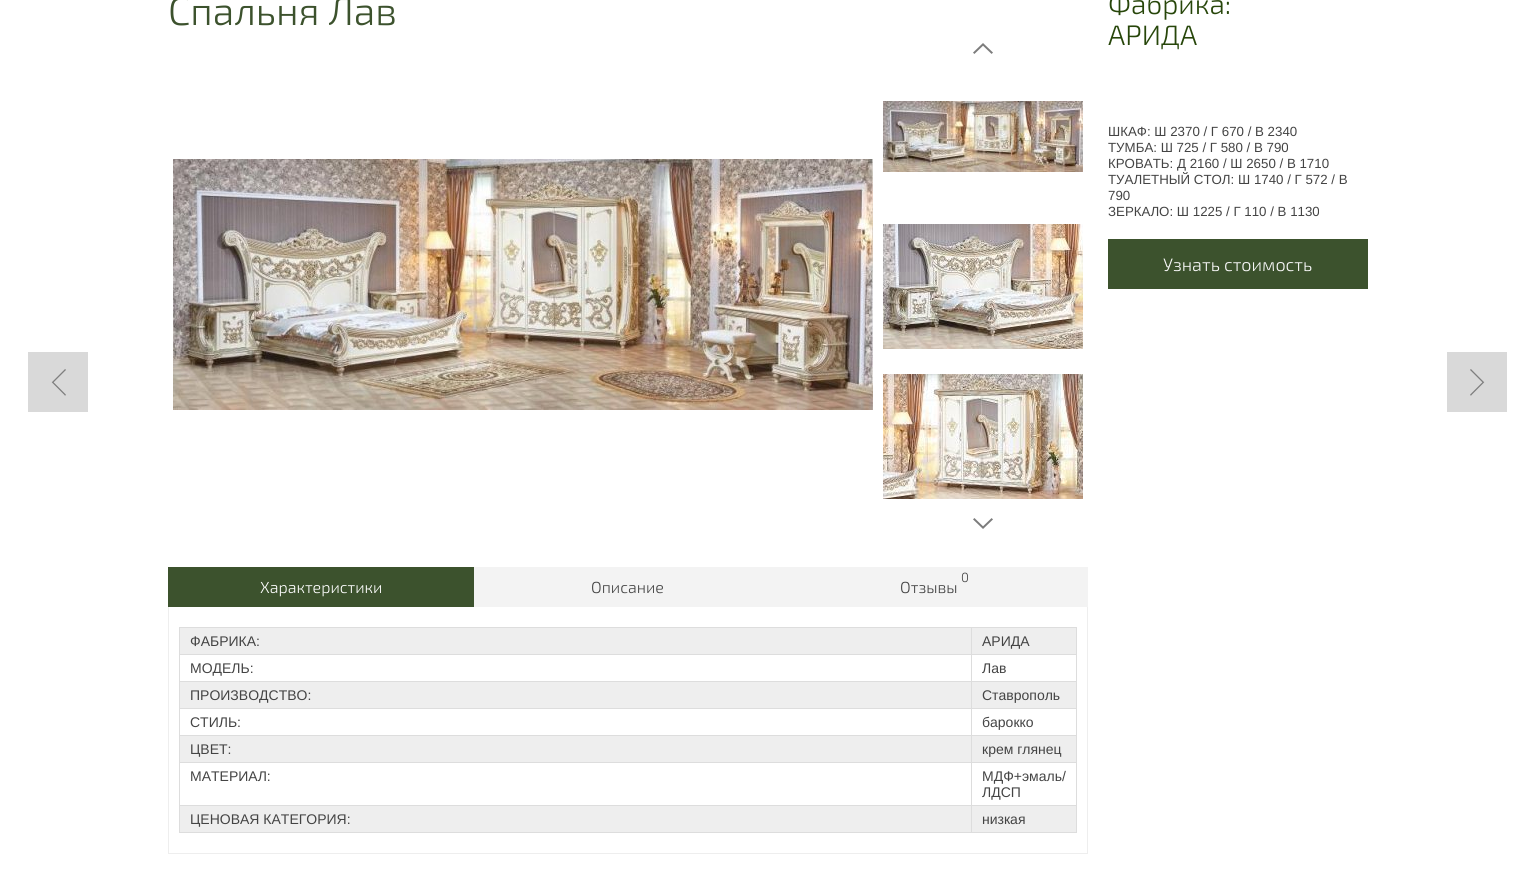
#include <cairo.h>
#include <math.h>
#include <stddef.h>


static void rgb(cairo_t *cr, int r, int g, int b)
{
	cairo_set_source_rgb(cr, r / 255.0, g / 255.0, b / 255.0);
}

static void face(cairo_t *cr, const char *family, double size, int italic, int bold)
{
	cairo_select_font_face(cr, family, italic ? CAIRO_FONT_SLANT_ITALIC : CAIRO_FONT_SLANT_NORMAL,
		bold ? CAIRO_FONT_WEIGHT_BOLD : CAIRO_FONT_WEIGHT_NORMAL);
	cairo_set_font_size(cr, size);
}

static void label(cairo_t *cr, double x, double y, const char *s)
{
	cairo_move_to(cr, x, y);
	cairo_show_text(cr, s);
}

static void rect(cairo_t *cr, double x, double y, double w, double h)
{
	cairo_rectangle(cr, x, y, w, h);
	cairo_fill(cr);
}

static void image(cairo_t *cr, const char *path, double x, double y, double w, double h)
{
	cairo_surface_t *image = cairo_image_surface_create_from_png(path);
	cairo_save(cr);
	cairo_set_source_surface(cr, image, x, y);
	cairo_rectangle(cr, x, y, w, h);
	cairo_fill(cr);
	cairo_restore(cr);
	cairo_surface_destroy(image);
}

static void draw(cairo_t *cr) {
	rgb(cr, 255, 255, 255);
	cairo_paint(cr);
	rgb(cr, 217, 217, 217);
	rect(cr, 28, 352, 60, 60);
	image(cr, "image0.png", 51, 369, 15, 27);
	face(cr, "Exo 2 Light", 39.25, 0, 0);
	rgb(cr, 60, 82, 45);
	label(cr, 168, 25, "Спальня Лав");
	image(cr, "image1.png", 173, 159, 700, 251);
	image(cr, "image2.png", 973, 43, 20, 11);
	image(cr, "image3.png", 883, 101, 200, 71);
	image(cr, "image4.png", 883, 224, 200, 125);
	image(cr, "image5.png", 883, 374, 200, 125);
	image(cr, "image6.png", 973, 518, 20, 11);
	face(cr, "Exo 2 Light", 28, 0, 0);
	rgb(cr, 39, 70, 10);
	label(cr, 1108, 14, "Фабрика:");
	label(cr, 1108, 45, "АРИДА");
	face(cr, "Liberation Sans", 13.3, 0, 0);
	rgb(cr, 68, 68, 68);
	label(cr, 1108, 136, "ШКАФ: Ш 2370 / Г 670 / В 2340");
	label(cr, 1108, 152, "ТУМБА: Ш 725 / Г 580 / В 790");
	label(cr, 1108, 168, "КРОВАТЬ: Д 2160 / Ш 2650 / В 1710");
	label(cr, 1108, 184, "ТУАЛЕТНЫЙ СТОЛ: Ш 1740 / Г 572 / В");
	label(cr, 1108, 200, "790");
	label(cr, 1108, 216, "ЗЕРКАЛО: Ш 1225 / Г 110 / В 1130");
	rgb(cr, 60, 82, 45);
	rect(cr, 1108, 239, 260, 50);
	face(cr, "Exo 2 Light", 18, 0, 0);
	rgb(cr, 248, 248, 248);
	label(cr, 1163, 271, "Узнать стоимость");
	cairo_rectangle(cr, 168.5, 606.5, 919, 247);
	rgb(cr, 238, 238, 238);
	cairo_set_line_width(cr, 1);
	cairo_stroke(cr);
	rgb(cr, 243, 243, 243);
	rect(cr, 474, 567, 614, 40);
	rgb(cr, 60, 82, 45);
	rect(cr, 168, 567, 306, 40);
	face(cr, "Exo 2 Light", 16, 0, 0);
	rgb(cr, 255, 255, 255);
	label(cr, 260, 593, "Характеристики");
	rgb(cr, 68, 68, 68);
	label(cr, 591, 593, "Описание");
	face(cr, "Exo 2 Light", 13.3, 0, 0);
	label(cr, 961, 582, "0");
	face(cr, "Exo 2 Light", 16, 0, 0);
	label(cr, 900, 593, "Отзывы");
	rgb(cr, 238, 238, 238);
	rect(cr, 180, 628, 791, 26);
	rgb(cr, 221, 221, 221);
	rect(cr, 971, 627, 106, 1);
	rect(cr, 971, 654, 106, 1);
	rect(cr, 971, 681, 106, 1);
	rect(cr, 971, 708, 106, 1);
	rect(cr, 971, 735, 106, 1);
	rect(cr, 971, 762, 106, 1);
	rect(cr, 971, 805, 106, 1);
	rect(cr, 1076, 805, 1, 28);
	rect(cr, 971, 832, 106, 1);
	rect(cr, 971, 805, 1, 28);
	rect(cr, 179, 805, 793, 1);
	rect(cr, 971, 762, 1, 44);
	rect(cr, 179, 762, 793, 1);
	rect(cr, 971, 735, 1, 28);
	rect(cr, 179, 735, 793, 1);
	rect(cr, 971, 708, 1, 28);
	rect(cr, 179, 708, 793, 1);
	rect(cr, 971, 681, 1, 28);
	rect(cr, 179, 681, 793, 1);
	rect(cr, 971, 654, 1, 28);
	rect(cr, 179, 654, 793, 1);
	rect(cr, 971, 627, 1, 28);
	rect(cr, 179, 627, 793, 1);
	rect(cr, 179, 832, 793, 1);
	rect(cr, 179, 805, 1, 28);
	rect(cr, 179, 762, 1, 44);
	rect(cr, 179, 735, 1, 28);
	rect(cr, 179, 708, 1, 28);
	rect(cr, 179, 681, 1, 28);
	rect(cr, 179, 654, 1, 28);
	rect(cr, 179, 627, 1, 28);
	face(cr, "Liberation Sans", 14, 0, 0);
	rgb(cr, 68, 68, 68);
	label(cr, 190, 646, "ФАБРИКА:");
	rgb(cr, 238, 238, 238);
	rect(cr, 972, 628, 104, 26);
	rgb(cr, 221, 221, 221);
	rect(cr, 1076, 762, 1, 44);
	rect(cr, 1076, 735, 1, 28);
	rect(cr, 1076, 708, 1, 28);
	rect(cr, 1076, 681, 1, 28);
	rect(cr, 1076, 654, 1, 28);
	rect(cr, 1076, 627, 1, 28);
	rgb(cr, 68, 68, 68);
	label(cr, 982, 646, "АРИДА");
	label(cr, 190, 673, "МОДЕЛЬ:");
	label(cr, 982, 673, "Лав");
	rgb(cr, 238, 238, 238);
	rect(cr, 180, 682, 791, 26);
	rgb(cr, 68, 68, 68);
	label(cr, 190, 700, "ПРОИЗВОДСТВО:");
	rgb(cr, 238, 238, 238);
	rect(cr, 972, 682, 104, 26);
	rgb(cr, 68, 68, 68);
	label(cr, 982, 700, "Ставрополь");
	label(cr, 190, 727, "СТИЛЬ:");
	label(cr, 982, 727, "барокко");
	rgb(cr, 238, 238, 238);
	rect(cr, 180, 736, 791, 26);
	rgb(cr, 68, 68, 68);
	label(cr, 190, 754, "ЦВЕТ:");
	rgb(cr, 238, 238, 238);
	rect(cr, 972, 736, 104, 26);
	rgb(cr, 68, 68, 68);
	label(cr, 982, 754, "крем глянец");
	label(cr, 190, 781, "МАТЕРИАЛ:");
	label(cr, 982, 781, "МДФ+эмаль/");
	label(cr, 982, 797, "ЛДСП");
	rgb(cr, 238, 238, 238);
	rect(cr, 180, 806, 791, 26);
	rgb(cr, 68, 68, 68);
	label(cr, 190, 824, "ЦЕНОВАЯ КАТЕГОРИЯ:");
	rgb(cr, 238, 238, 238);
	rect(cr, 972, 806, 104, 26);
	rgb(cr, 68, 68, 68);
	label(cr, 982, 824, "низкая");
	rgb(cr, 217, 217, 217);
	rect(cr, 1447, 352, 60, 60);
	image(cr, "image7.png", 1470, 369, 15, 27);
}

int main(void) {
	cairo_surface_t *surface = cairo_image_surface_create(CAIRO_FORMAT_RGB24, 1535, 879);
	cairo_t *cr = cairo_create(surface);
	cairo_font_options_t *options = cairo_font_options_create();
	cairo_font_options_set_hint_metrics(options, CAIRO_HINT_METRICS_OFF);
	cairo_font_options_set_hint_style(options, CAIRO_HINT_STYLE_NONE);
	cairo_set_font_options(cr, options);
	cairo_set_miter_limit(cr, 4);
	draw(cr);
	cairo_surface_write_to_png(surface, "render.png");
	cairo_font_options_destroy(options);
	cairo_destroy(cr);
	cairo_surface_destroy(surface);
	return 0;
}
